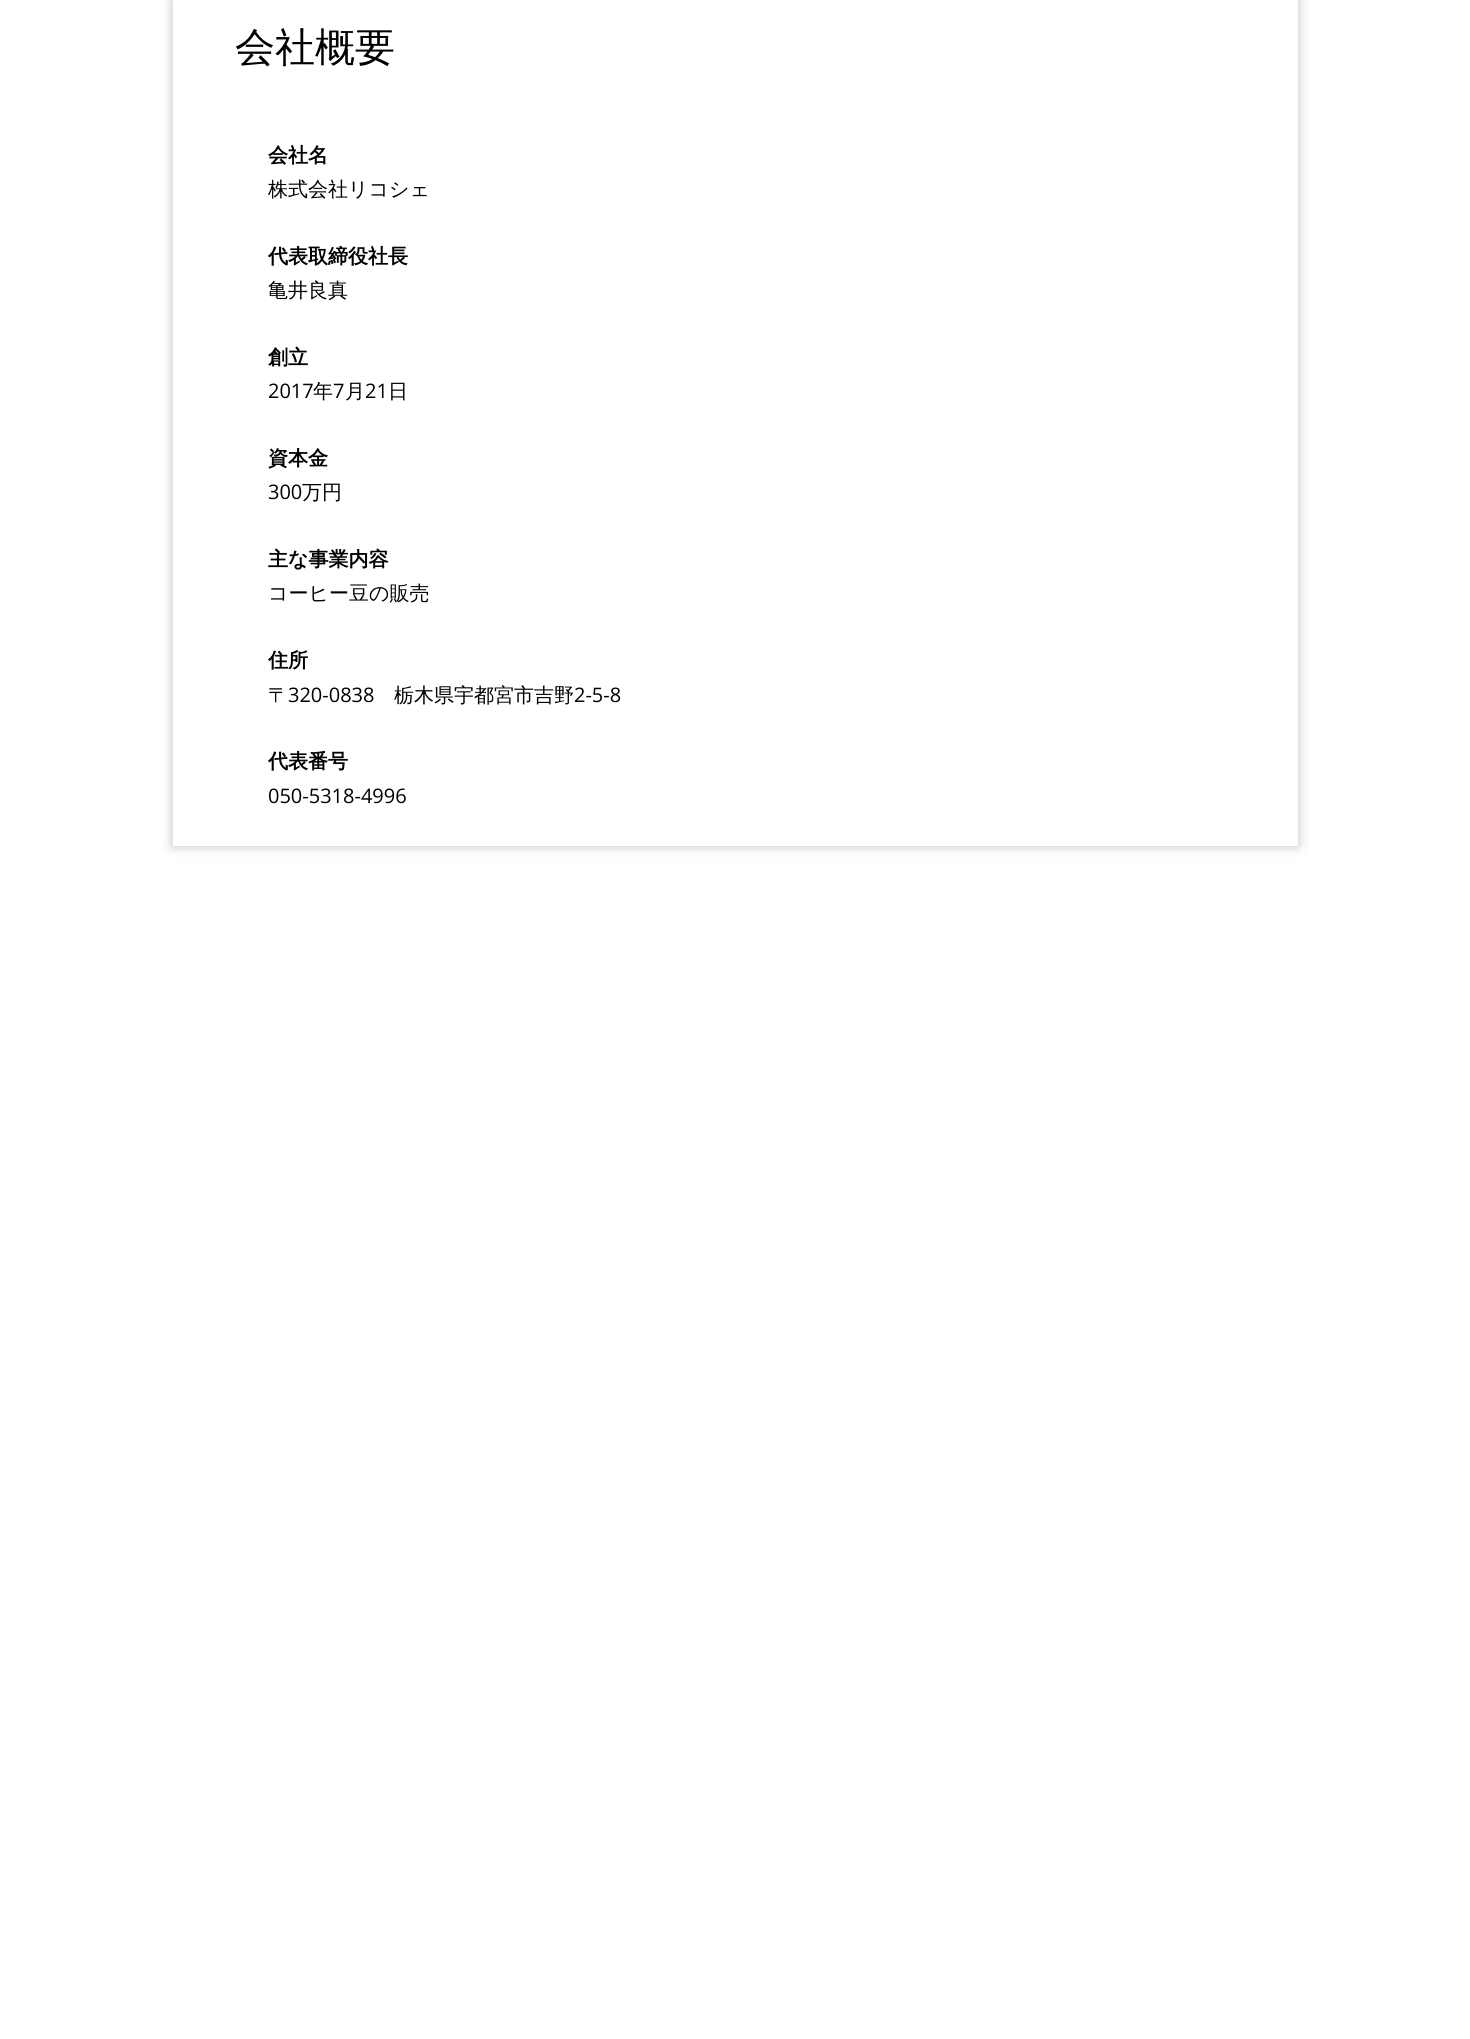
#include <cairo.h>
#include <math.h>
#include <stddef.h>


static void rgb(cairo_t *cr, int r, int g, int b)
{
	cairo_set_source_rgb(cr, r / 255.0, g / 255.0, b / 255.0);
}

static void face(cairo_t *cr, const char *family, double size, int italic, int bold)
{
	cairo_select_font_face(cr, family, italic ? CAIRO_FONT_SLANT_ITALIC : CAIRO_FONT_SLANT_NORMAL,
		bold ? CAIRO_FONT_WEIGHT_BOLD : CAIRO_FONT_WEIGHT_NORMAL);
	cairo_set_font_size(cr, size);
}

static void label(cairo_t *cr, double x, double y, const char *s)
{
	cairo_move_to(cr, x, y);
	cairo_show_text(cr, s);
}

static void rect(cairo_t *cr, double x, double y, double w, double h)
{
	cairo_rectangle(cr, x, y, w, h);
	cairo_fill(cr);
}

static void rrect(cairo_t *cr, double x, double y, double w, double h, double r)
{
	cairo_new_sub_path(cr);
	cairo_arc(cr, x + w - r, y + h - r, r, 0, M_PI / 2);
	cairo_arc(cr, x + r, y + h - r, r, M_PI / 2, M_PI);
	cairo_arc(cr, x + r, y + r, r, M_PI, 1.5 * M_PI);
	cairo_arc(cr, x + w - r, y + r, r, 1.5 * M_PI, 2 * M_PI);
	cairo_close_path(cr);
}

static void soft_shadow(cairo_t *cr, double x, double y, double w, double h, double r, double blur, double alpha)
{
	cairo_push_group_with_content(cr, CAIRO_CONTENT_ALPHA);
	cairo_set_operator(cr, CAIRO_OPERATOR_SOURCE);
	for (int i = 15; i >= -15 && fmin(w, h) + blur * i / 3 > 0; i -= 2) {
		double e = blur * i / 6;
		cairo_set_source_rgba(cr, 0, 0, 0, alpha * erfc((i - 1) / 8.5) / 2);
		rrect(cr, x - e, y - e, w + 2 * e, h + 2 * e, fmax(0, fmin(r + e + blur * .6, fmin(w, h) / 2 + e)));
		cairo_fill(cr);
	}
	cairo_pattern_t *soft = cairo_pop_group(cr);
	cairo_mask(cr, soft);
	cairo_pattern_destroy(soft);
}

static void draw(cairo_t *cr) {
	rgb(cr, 255, 255, 255);
	cairo_paint(cr);
	rgb(cr, 0, 0, 0);
	soft_shadow(cr, 173, 0, 1125, 846, 0, 6, 0.25);
	rgb(cr, 255, 255, 255);
	rect(cr, 173, 0, 1125, 846);
	face(cr, "WenQuanYi Zen Hei Medium", 40, 0, 0);
	rgb(cr, 0, 0, 0);
	label(cr, 235, 61, "会社概要");
	face(cr, "WenQuanYi Zen Hei", 20, 0, 1);
	label(cr, 268, 162, "会社名");
	face(cr, "WenQuanYi Zen Hei Medium", 20, 0, 0);
	label(cr, 268, 196, "株式会社リコシェ");
	face(cr, "WenQuanYi Zen Hei", 20, 0, 1);
	label(cr, 268, 263, "代表取締役社長");
	face(cr, "WenQuanYi Zen Hei Medium", 20, 0, 0);
	label(cr, 268, 297, "亀井良真");
	face(cr, "WenQuanYi Zen Hei", 20, 0, 1);
	label(cr, 268, 364, "創立");
	face(cr, "Open Sans", 20, 0, 0);
	label(cr, 268, 398, "2017");
	face(cr, "WenQuanYi Zen Hei Medium", 20, 0, 0);
	label(cr, 313, 398, "年");
	face(cr, "Open Sans", 20, 0, 0);
	label(cr, 333, 398, "7");
	face(cr, "WenQuanYi Zen Hei Medium", 20, 0, 0);
	label(cr, 345, 398, "月");
	face(cr, "Open Sans", 20, 0, 0);
	label(cr, 365, 398, "21");
	face(cr, "WenQuanYi Zen Hei Medium", 20, 0, 0);
	label(cr, 388, 398, "日");
	face(cr, "WenQuanYi Zen Hei", 20, 0, 1);
	label(cr, 268, 465, "資本金");
	face(cr, "Open Sans", 20, 0, 0);
	label(cr, 268, 499, "300");
	face(cr, "WenQuanYi Zen Hei Medium", 20, 0, 0);
	label(cr, 302, 499, "万円");
	face(cr, "WenQuanYi Zen Hei", 20, 0, 1);
	label(cr, 268, 566, "主な事業内容");
	face(cr, "WenQuanYi Zen Hei Medium", 20, 0, 0);
	label(cr, 268, 600, "コーヒー豆の販売");
	face(cr, "WenQuanYi Zen Hei", 20, 0, 1);
	label(cr, 268, 667, "住所");
	face(cr, "WenQuanYi Zen Hei Medium", 20, 0, 0);
	label(cr, 268, 702, "〒");
	face(cr, "Open Sans", 20, 0, 0);
	label(cr, 288, 702, "320-0838");
	face(cr, "WenQuanYi Zen Hei Medium", 20, 0, 0);
	label(cr, 394, 702, "栃木県宇都宮市吉野");
	face(cr, "Open Sans", 20, 0, 0);
	label(cr, 574, 702, "2-5-8");
	face(cr, "WenQuanYi Zen Hei", 20, 0, 1);
	label(cr, 268, 768, "代表番号");
	face(cr, "Open Sans", 20, 0, 0);
	label(cr, 268, 803, "050-5318-4996");
}

int main(void) {
	cairo_surface_t *surface = cairo_image_surface_create(CAIRO_FORMAT_RGB24, 1470, 2039);
	cairo_t *cr = cairo_create(surface);
	cairo_font_options_t *options = cairo_font_options_create();
	cairo_font_options_set_hint_metrics(options, CAIRO_HINT_METRICS_OFF);
	cairo_font_options_set_hint_style(options, CAIRO_HINT_STYLE_NONE);
	cairo_set_font_options(cr, options);
	cairo_set_miter_limit(cr, 4);
	draw(cr);
	cairo_surface_write_to_png(surface, "render.png");
	cairo_font_options_destroy(options);
	cairo_destroy(cr);
	cairo_surface_destroy(surface);
	return 0;
}
